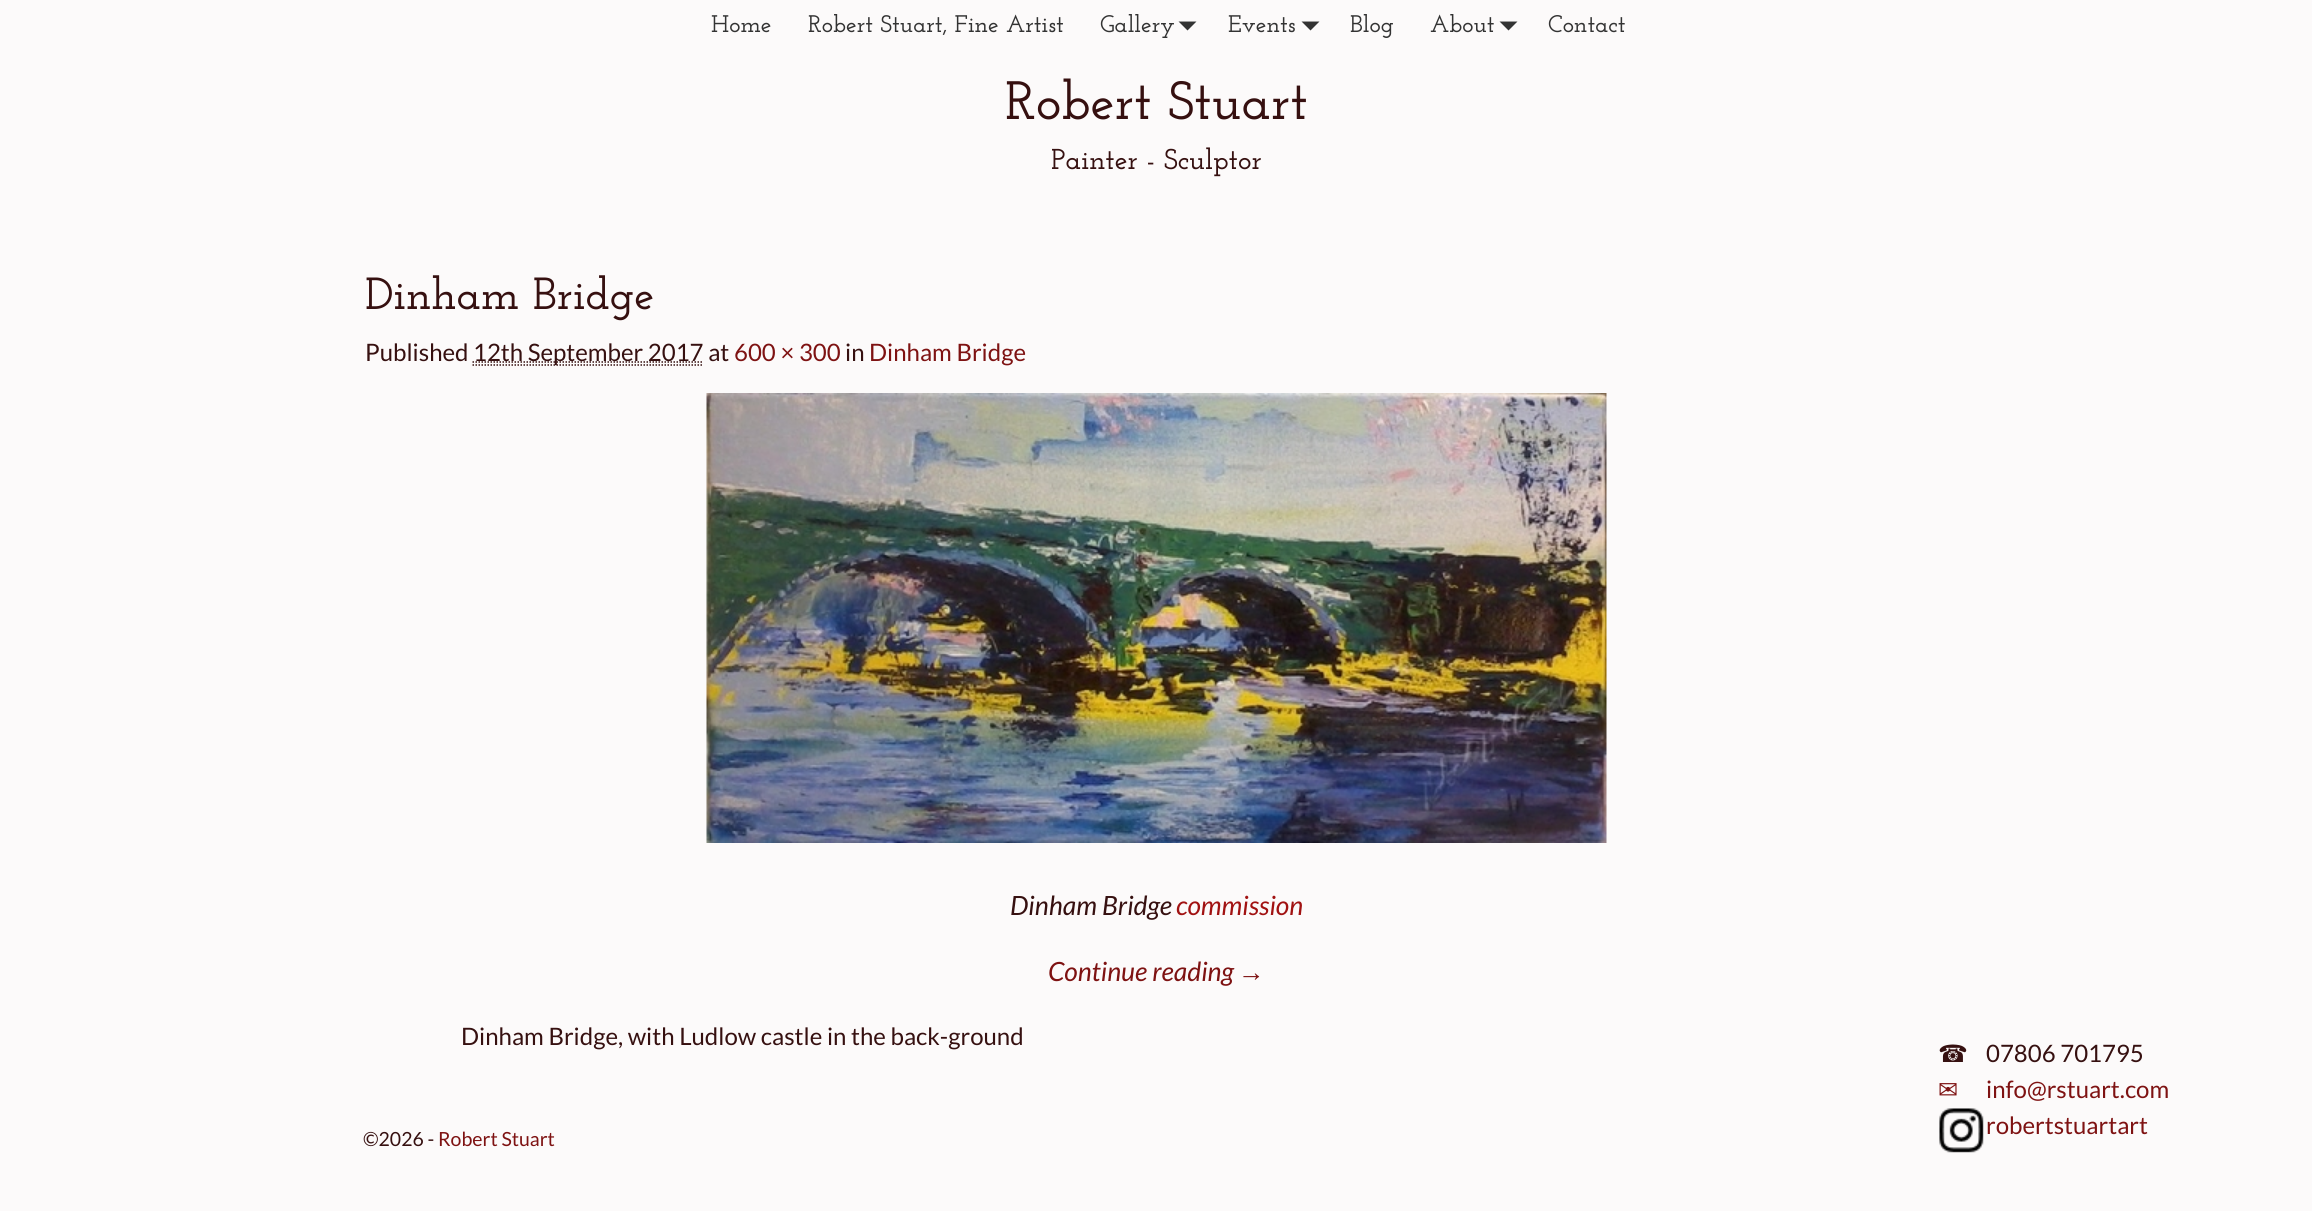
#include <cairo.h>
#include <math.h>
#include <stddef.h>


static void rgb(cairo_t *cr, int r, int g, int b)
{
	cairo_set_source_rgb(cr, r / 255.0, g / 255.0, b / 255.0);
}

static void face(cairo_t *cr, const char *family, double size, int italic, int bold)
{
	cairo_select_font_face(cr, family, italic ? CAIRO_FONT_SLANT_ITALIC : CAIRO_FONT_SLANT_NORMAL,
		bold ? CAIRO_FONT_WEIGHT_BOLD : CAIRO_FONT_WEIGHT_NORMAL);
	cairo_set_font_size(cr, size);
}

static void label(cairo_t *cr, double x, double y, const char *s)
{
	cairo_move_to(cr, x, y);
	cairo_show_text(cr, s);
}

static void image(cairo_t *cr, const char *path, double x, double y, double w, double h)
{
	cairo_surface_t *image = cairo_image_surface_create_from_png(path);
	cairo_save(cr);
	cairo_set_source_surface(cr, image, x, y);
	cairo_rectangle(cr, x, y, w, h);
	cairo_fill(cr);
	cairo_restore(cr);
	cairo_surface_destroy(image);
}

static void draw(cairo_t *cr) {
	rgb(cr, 252, 250, 250);
	cairo_paint(cr);
	face(cr, "Josefin Slab Thin", 24, 0, 0);
	rgb(cr, 51, 51, 51);
	label(cr, 711, 32, "Home");
	label(cr, 808, 32, "Robert Stuart, Fine Artist");
	label(cr, 1100, 32, "Gallery");
	cairo_new_path(cr);
	cairo_move_to(cr, 1178.5, 21.5);
	cairo_line_to(cr, 1196.5, 21.5);
	cairo_line_to(cr, 1187.5, 30.5);
	cairo_close_path(cr);
	cairo_fill(cr);
	label(cr, 1228, 32, "Events");
	cairo_new_path(cr);
	cairo_move_to(cr, 1301.5, 21.5);
	cairo_line_to(cr, 1319.5, 21.5);
	cairo_line_to(cr, 1310.5, 30.5);
	cairo_close_path(cr);
	cairo_fill(cr);
	label(cr, 1350, 32, "Blog");
	label(cr, 1430, 32, "About");
	cairo_new_path(cr);
	cairo_move_to(cr, 1499.5, 21.5);
	cairo_line_to(cr, 1517.5, 21.5);
	cairo_line_to(cr, 1508.5, 30.5);
	cairo_close_path(cr);
	cairo_fill(cr);
	label(cr, 1548, 32, "Contact");
	face(cr, "Josefin Slab Thin", 54, 0, 0);
	rgb(cr, 54, 16, 16);
	label(cr, 1005, 119, "Robert Stuart");
	face(cr, "Josefin Slab Thin", 28.75, 0, 0);
	label(cr, 1051, 169, "Painter - Sculptor");
	face(cr, "Josefin Slab Thin", 45, 0, 0);
	label(cr, 365, 309, "Dinham Bridge");
	face(cr, "Lato", 24, 0, 0);
	label(cr, 365, 361, "Published");
	cairo_new_path(cr);
	cairo_move_to(cr, 472.5, 365);
	cairo_line_to(cr, 703.5, 365);
	cairo_set_line_width(cr, 1.5);
	cairo_set_dash(cr, (double[]){1.5, 1.5}, 2, 0);
	cairo_stroke(cr);
	cairo_new_path(cr);
	cairo_move_to(cr, 472.5, 362);
	cairo_line_to(cr, 703, 362);
	cairo_stroke(cr);
	label(cr, 473, 361, "12th September 2017 at");
	rgb(cr, 126, 18, 18);
	label(cr, 734, 361, "600 × 300");
	rgb(cr, 54, 16, 16);
	label(cr, 845, 361, "in");
	rgb(cr, 126, 18, 18);
	label(cr, 869, 361, "Dinham Bridge");
	image(cr, "image0.png", 706, 393, 901, 450);
	face(cr, "Lato", 26.5, 1, 0);
	rgb(cr, 54, 16, 16);
	label(cr, 1010, 915, "Dinham Bridge");
	rgb(cr, 161, 18, 18);
	label(cr, 1176, 915, "commission");
	rgb(cr, 126, 18, 18);
	label(cr, 1048, 981, "Continue reading");
	face(cr, "Liberation Sans", 26.5, 1, 0);
	label(cr, 1238, 981, "→");
	face(cr, "Lato", 24, 0, 0);
	rgb(cr, 54, 16, 16);
	label(cr, 461, 1045, "Dinham Bridge, with Ludlow castle in the back-ground");
	face(cr, "DejaVu Sans", 24, 0, 0);
	label(cr, 1938, 1062, "☎");
	face(cr, "Lato", 24, 0, 0);
	label(cr, 1986, 1062, "07806 701795");
	face(cr, "DejaVu Sans", 24, 0, 0);
	rgb(cr, 126, 18, 18);
	label(cr, 1938, 1098, "✉");
	face(cr, "Lato", 24, 0, 0);
	label(cr, 1986, 1098, "info@rstuart.com");
	image(cr, "image1.png", 1939, 1108, 45, 45);
	label(cr, 1986, 1134, "robertstuartart");
	face(cr, "Lato", 19.5, 0, 0);
	rgb(cr, 54, 16, 16);
	label(cr, 363, 1146, "©2026 -");
	rgb(cr, 126, 18, 18);
	label(cr, 438, 1146, "Robert Stuart");
}

int main(void) {
	cairo_surface_t *surface = cairo_image_surface_create(CAIRO_FORMAT_RGB24, 2312, 1211);
	cairo_t *cr = cairo_create(surface);
	cairo_font_options_t *options = cairo_font_options_create();
	cairo_font_options_set_hint_metrics(options, CAIRO_HINT_METRICS_OFF);
	cairo_font_options_set_hint_style(options, CAIRO_HINT_STYLE_NONE);
	cairo_set_font_options(cr, options);
	cairo_set_miter_limit(cr, 4);
	draw(cr);
	cairo_surface_write_to_png(surface, "render.png");
	cairo_font_options_destroy(options);
	cairo_destroy(cr);
	cairo_surface_destroy(surface);
	return 0;
}
